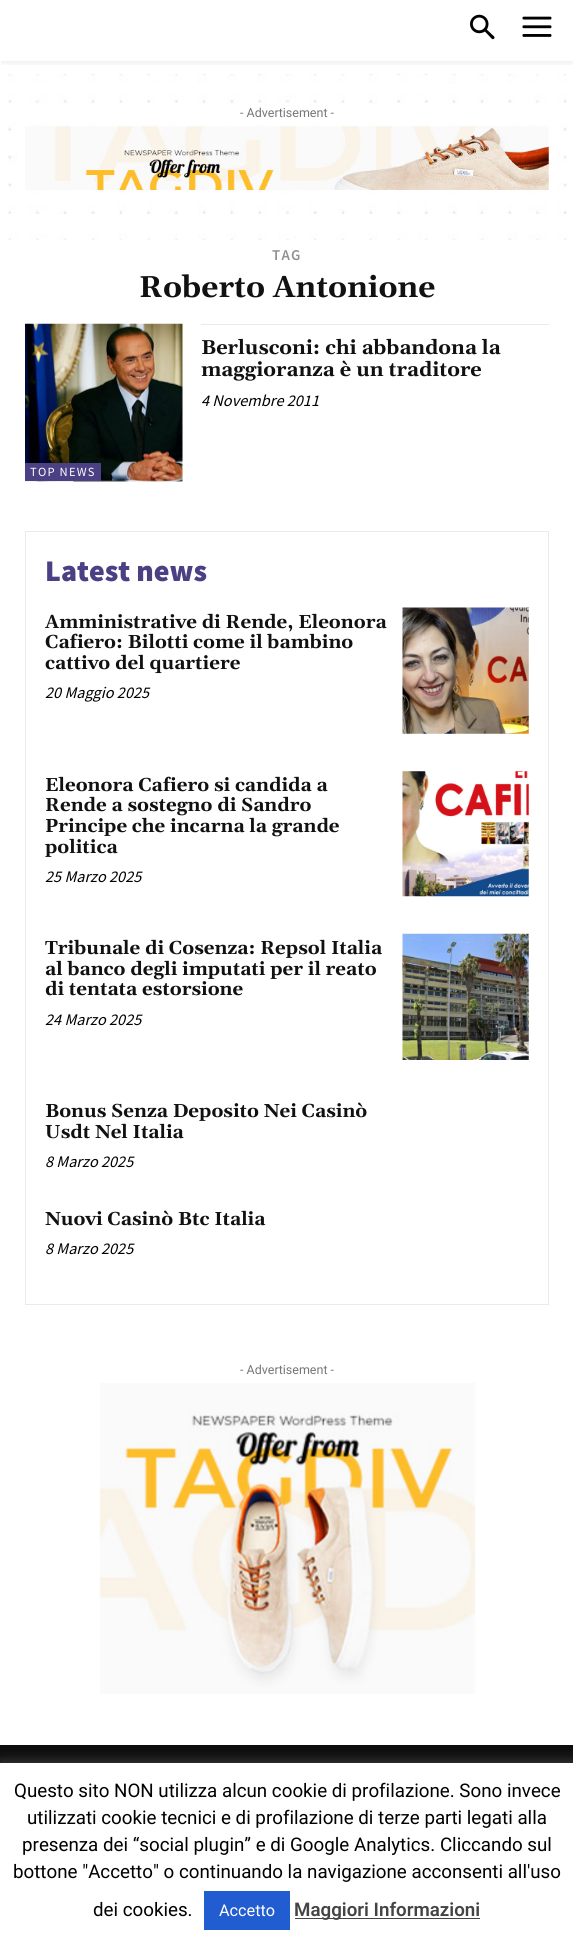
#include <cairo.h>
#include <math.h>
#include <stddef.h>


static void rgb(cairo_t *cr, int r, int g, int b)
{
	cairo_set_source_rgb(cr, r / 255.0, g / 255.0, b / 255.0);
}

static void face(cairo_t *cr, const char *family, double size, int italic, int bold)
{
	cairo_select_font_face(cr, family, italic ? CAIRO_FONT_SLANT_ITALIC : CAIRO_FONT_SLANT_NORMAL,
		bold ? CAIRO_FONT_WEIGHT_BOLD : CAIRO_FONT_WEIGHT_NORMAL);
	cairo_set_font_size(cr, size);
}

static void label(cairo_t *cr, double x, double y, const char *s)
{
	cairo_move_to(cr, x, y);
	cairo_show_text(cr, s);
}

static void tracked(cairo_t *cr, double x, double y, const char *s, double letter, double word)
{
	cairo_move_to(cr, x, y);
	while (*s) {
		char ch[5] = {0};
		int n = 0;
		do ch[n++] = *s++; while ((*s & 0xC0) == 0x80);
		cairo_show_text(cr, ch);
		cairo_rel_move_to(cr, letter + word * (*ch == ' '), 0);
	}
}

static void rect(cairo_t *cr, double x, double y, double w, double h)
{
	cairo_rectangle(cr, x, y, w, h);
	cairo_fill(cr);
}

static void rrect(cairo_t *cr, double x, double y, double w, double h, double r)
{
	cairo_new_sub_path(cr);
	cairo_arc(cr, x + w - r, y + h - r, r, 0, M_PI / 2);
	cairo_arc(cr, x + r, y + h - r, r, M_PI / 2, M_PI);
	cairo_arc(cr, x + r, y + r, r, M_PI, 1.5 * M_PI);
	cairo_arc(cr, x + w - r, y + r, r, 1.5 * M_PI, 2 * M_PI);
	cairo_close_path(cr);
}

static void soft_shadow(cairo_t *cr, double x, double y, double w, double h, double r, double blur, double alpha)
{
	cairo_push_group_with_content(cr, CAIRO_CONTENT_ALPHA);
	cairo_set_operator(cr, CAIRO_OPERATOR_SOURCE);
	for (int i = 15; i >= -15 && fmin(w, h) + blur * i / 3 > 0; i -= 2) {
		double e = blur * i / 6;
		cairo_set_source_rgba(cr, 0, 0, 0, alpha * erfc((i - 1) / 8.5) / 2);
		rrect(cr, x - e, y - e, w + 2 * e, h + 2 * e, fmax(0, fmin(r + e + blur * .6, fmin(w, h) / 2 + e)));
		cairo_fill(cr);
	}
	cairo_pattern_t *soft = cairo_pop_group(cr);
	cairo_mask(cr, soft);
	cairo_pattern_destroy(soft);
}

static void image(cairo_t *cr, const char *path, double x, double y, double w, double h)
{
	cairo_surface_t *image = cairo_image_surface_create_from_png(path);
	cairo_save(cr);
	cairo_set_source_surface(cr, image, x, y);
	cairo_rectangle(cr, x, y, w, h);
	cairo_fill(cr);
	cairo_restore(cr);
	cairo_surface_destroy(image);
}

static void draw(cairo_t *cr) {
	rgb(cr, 255, 255, 255);
	cairo_paint(cr);
	image(cr, "image0.png", 470, 14, 25, 26);
	image(cr, "image1.png", 522, 16, 30, 21);
	cairo_save(cr);
	cairo_rectangle(cr, 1, 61, 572, 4);
	cairo_clip(cr);
	rgb(cr, 0, 0, 0);
	soft_shadow(cr, 1, 3, 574, 61, 0, 2.5, 0.06);
	cairo_restore(cr);
	image(cr, "image2.png", 7, 74, 560, 166);
	face(cr, "Roboto", 12.5, 0, 0);
	rgb(cr, 118, 118, 118);
	label(cr, 240, 117, "- Advertisement -");
	image(cr, "image3.png", 25, 126, 524, 64);
	face(cr, "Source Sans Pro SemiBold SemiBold", 15, 0, 0);
	rgb(cr, 145, 145, 145);
	tracked(cr, 272, 260, "TAG", 1.25, 0);
	face(cr, "Gelasio", 30, 0, 1);
	rgb(cr, 17, 17, 17);
	label(cr, 139, 297, "Roberto Antonione");
	rgb(cr, 234, 234, 234);
	rect(cr, 201, 324, 348, 1);
	face(cr, "Gelasio", 20, 0, 1);
	rgb(cr, 17, 17, 17);
	label(cr, 201, 354, "Berlusconi: chi abbandona la");
	label(cr, 201, 376, "maggioranza è un traditore");
	face(cr, "Source Sans Pro", 16.25, 1, 0);
	rgb(cr, 0, 0, 0);
	label(cr, 201, 406, "4 Novembre 2011");
	image(cr, "image4.png", 25, 323, 158, 159);
	rgb(cr, 76, 64, 132);
	rect(cr, 25, 463, 76, 18);
	face(cr, "Source Sans Pro", 12.5, 0, 0);
	rgb(cr, 255, 255, 255);
	tracked(cr, 30, 476, "TOP NEWS", 1.25, 0);
	cairo_rectangle(cr, 25.5, 531.5, 523, 773);
	rgb(cr, 234, 234, 234);
	cairo_set_line_width(cr, 1);
	cairo_stroke(cr);
	face(cr, "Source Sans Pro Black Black", 30, 0, 0);
	rgb(cr, 76, 64, 132);
	label(cr, 45, 581, "Latest news");
	face(cr, "Gelasio", 18.75, 0, 1);
	rgb(cr, 17, 17, 17);
	label(cr, 45, 628, "Amministrative di Rende, Eleonora");
	label(cr, 45, 648, "Cafiero: Bilotti come il bambino");
	label(cr, 45, 669, "cattivo del quartiere");
	face(cr, "Source Sans Pro", 16.25, 1, 0);
	rgb(cr, 0, 0, 0);
	label(cr, 45, 698, "20 Maggio 2025");
	image(cr, "image5.png", 402, 607, 127, 127);
	face(cr, "Gelasio", 18.75, 0, 1);
	rgb(cr, 17, 17, 17);
	label(cr, 45, 791, "Eleonora Cafiero si candida a");
	label(cr, 45, 811, "Rende a sostegno di Sandro");
	label(cr, 45, 832, "Principe che incarna la grande");
	label(cr, 45, 853, "politica");
	face(cr, "Source Sans Pro", 16.25, 1, 0);
	rgb(cr, 0, 0, 0);
	label(cr, 45, 882, "25 Marzo 2025");
	image(cr, "image6.png", 402, 771, 127, 126);
	face(cr, "Gelasio", 18.75, 0, 1);
	rgb(cr, 17, 17, 17);
	label(cr, 45, 954, "Tribunale di Cosenza: Repsol Italia");
	label(cr, 45, 975, "al banco degli imputati per il reato");
	label(cr, 45, 995, "di tentata estorsione");
	face(cr, "Source Sans Pro", 16.25, 1, 0);
	rgb(cr, 0, 0, 0);
	label(cr, 45, 1025, "24 Marzo 2025");
	image(cr, "image7.png", 402, 933, 127, 127);
	face(cr, "Gelasio", 18.75, 0, 1);
	rgb(cr, 17, 17, 17);
	label(cr, 45, 1117, "Bonus Senza Deposito Nei Casinò");
	label(cr, 45, 1138, "Usdt Nel Italia");
	face(cr, "Source Sans Pro", 16.25, 1, 0);
	rgb(cr, 0, 0, 0);
	label(cr, 45, 1167, "8 Marzo 2025");
	face(cr, "Gelasio", 18.75, 0, 1);
	rgb(cr, 17, 17, 17);
	label(cr, 45, 1225, "Nuovi Casinò Btc Italia");
	face(cr, "Source Sans Pro", 16.25, 1, 0);
	rgb(cr, 0, 0, 0);
	label(cr, 45, 1254, "8 Marzo 2025");
	face(cr, "Roboto", 12.5, 0, 0);
	rgb(cr, 118, 118, 118);
	label(cr, 240, 1374, "- Advertisement -");
	image(cr, "image8.png", 99, 1383, 377, 311);
	rgb(cr, 13, 13, 13);
	rect(cr, 0, 1745, 573, 18);
	rgb(cr, 172, 171, 171);
	soft_shadow(cr, 0, 1761, 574, 183, 0, 6, 0.3);
	rgb(cr, 255, 255, 255);
	rect(cr, 0, 1763, 573, 181);
	face(cr, "Roboto", 18.75, 0, 0);
	rgb(cr, 0, 0, 0);
	label(cr, 14, 1797, "Questo sito NON utilizza alcun cookie di profilazione. Sono invece");
	label(cr, 27, 1824, "utilizzati cookie tecnici e di profilazione di terze parti legati alla");
	label(cr, 22, 1851, "presenza dei “social plugin” e di Google Analytics. Cliccando sul");
	label(cr, 13, 1878, "bottone \"Accetto\" o continuando la navigazione acconsenti all'uso");
	label(cr, 93, 1916, "dei cookies.");
	rgb(cr, 33, 92, 209);
	rect(cr, 204, 1891, 86, 39);
	face(cr, "Roboto", 16.25, 0, 0);
	rgb(cr, 255, 255, 255);
	label(cr, 219, 1916, "Accetto");
	rgb(cr, 68, 68, 68);
	rect(cr, 295, 1918, 185, 1);
	face(cr, "Roboto SemiBold", 18.75, 0, 0);
	label(cr, 294, 1916, "Maggiori Informazioni");
}

int main(void) {
	cairo_surface_t *surface = cairo_image_surface_create(CAIRO_FORMAT_RGB24, 573, 1944);
	cairo_t *cr = cairo_create(surface);
	cairo_font_options_t *options = cairo_font_options_create();
	cairo_font_options_set_hint_metrics(options, CAIRO_HINT_METRICS_OFF);
	cairo_font_options_set_hint_style(options, CAIRO_HINT_STYLE_NONE);
	cairo_set_font_options(cr, options);
	cairo_set_miter_limit(cr, 4);
	draw(cr);
	cairo_surface_write_to_png(surface, "render.png");
	cairo_font_options_destroy(options);
	cairo_destroy(cr);
	cairo_surface_destroy(surface);
	return 0;
}
